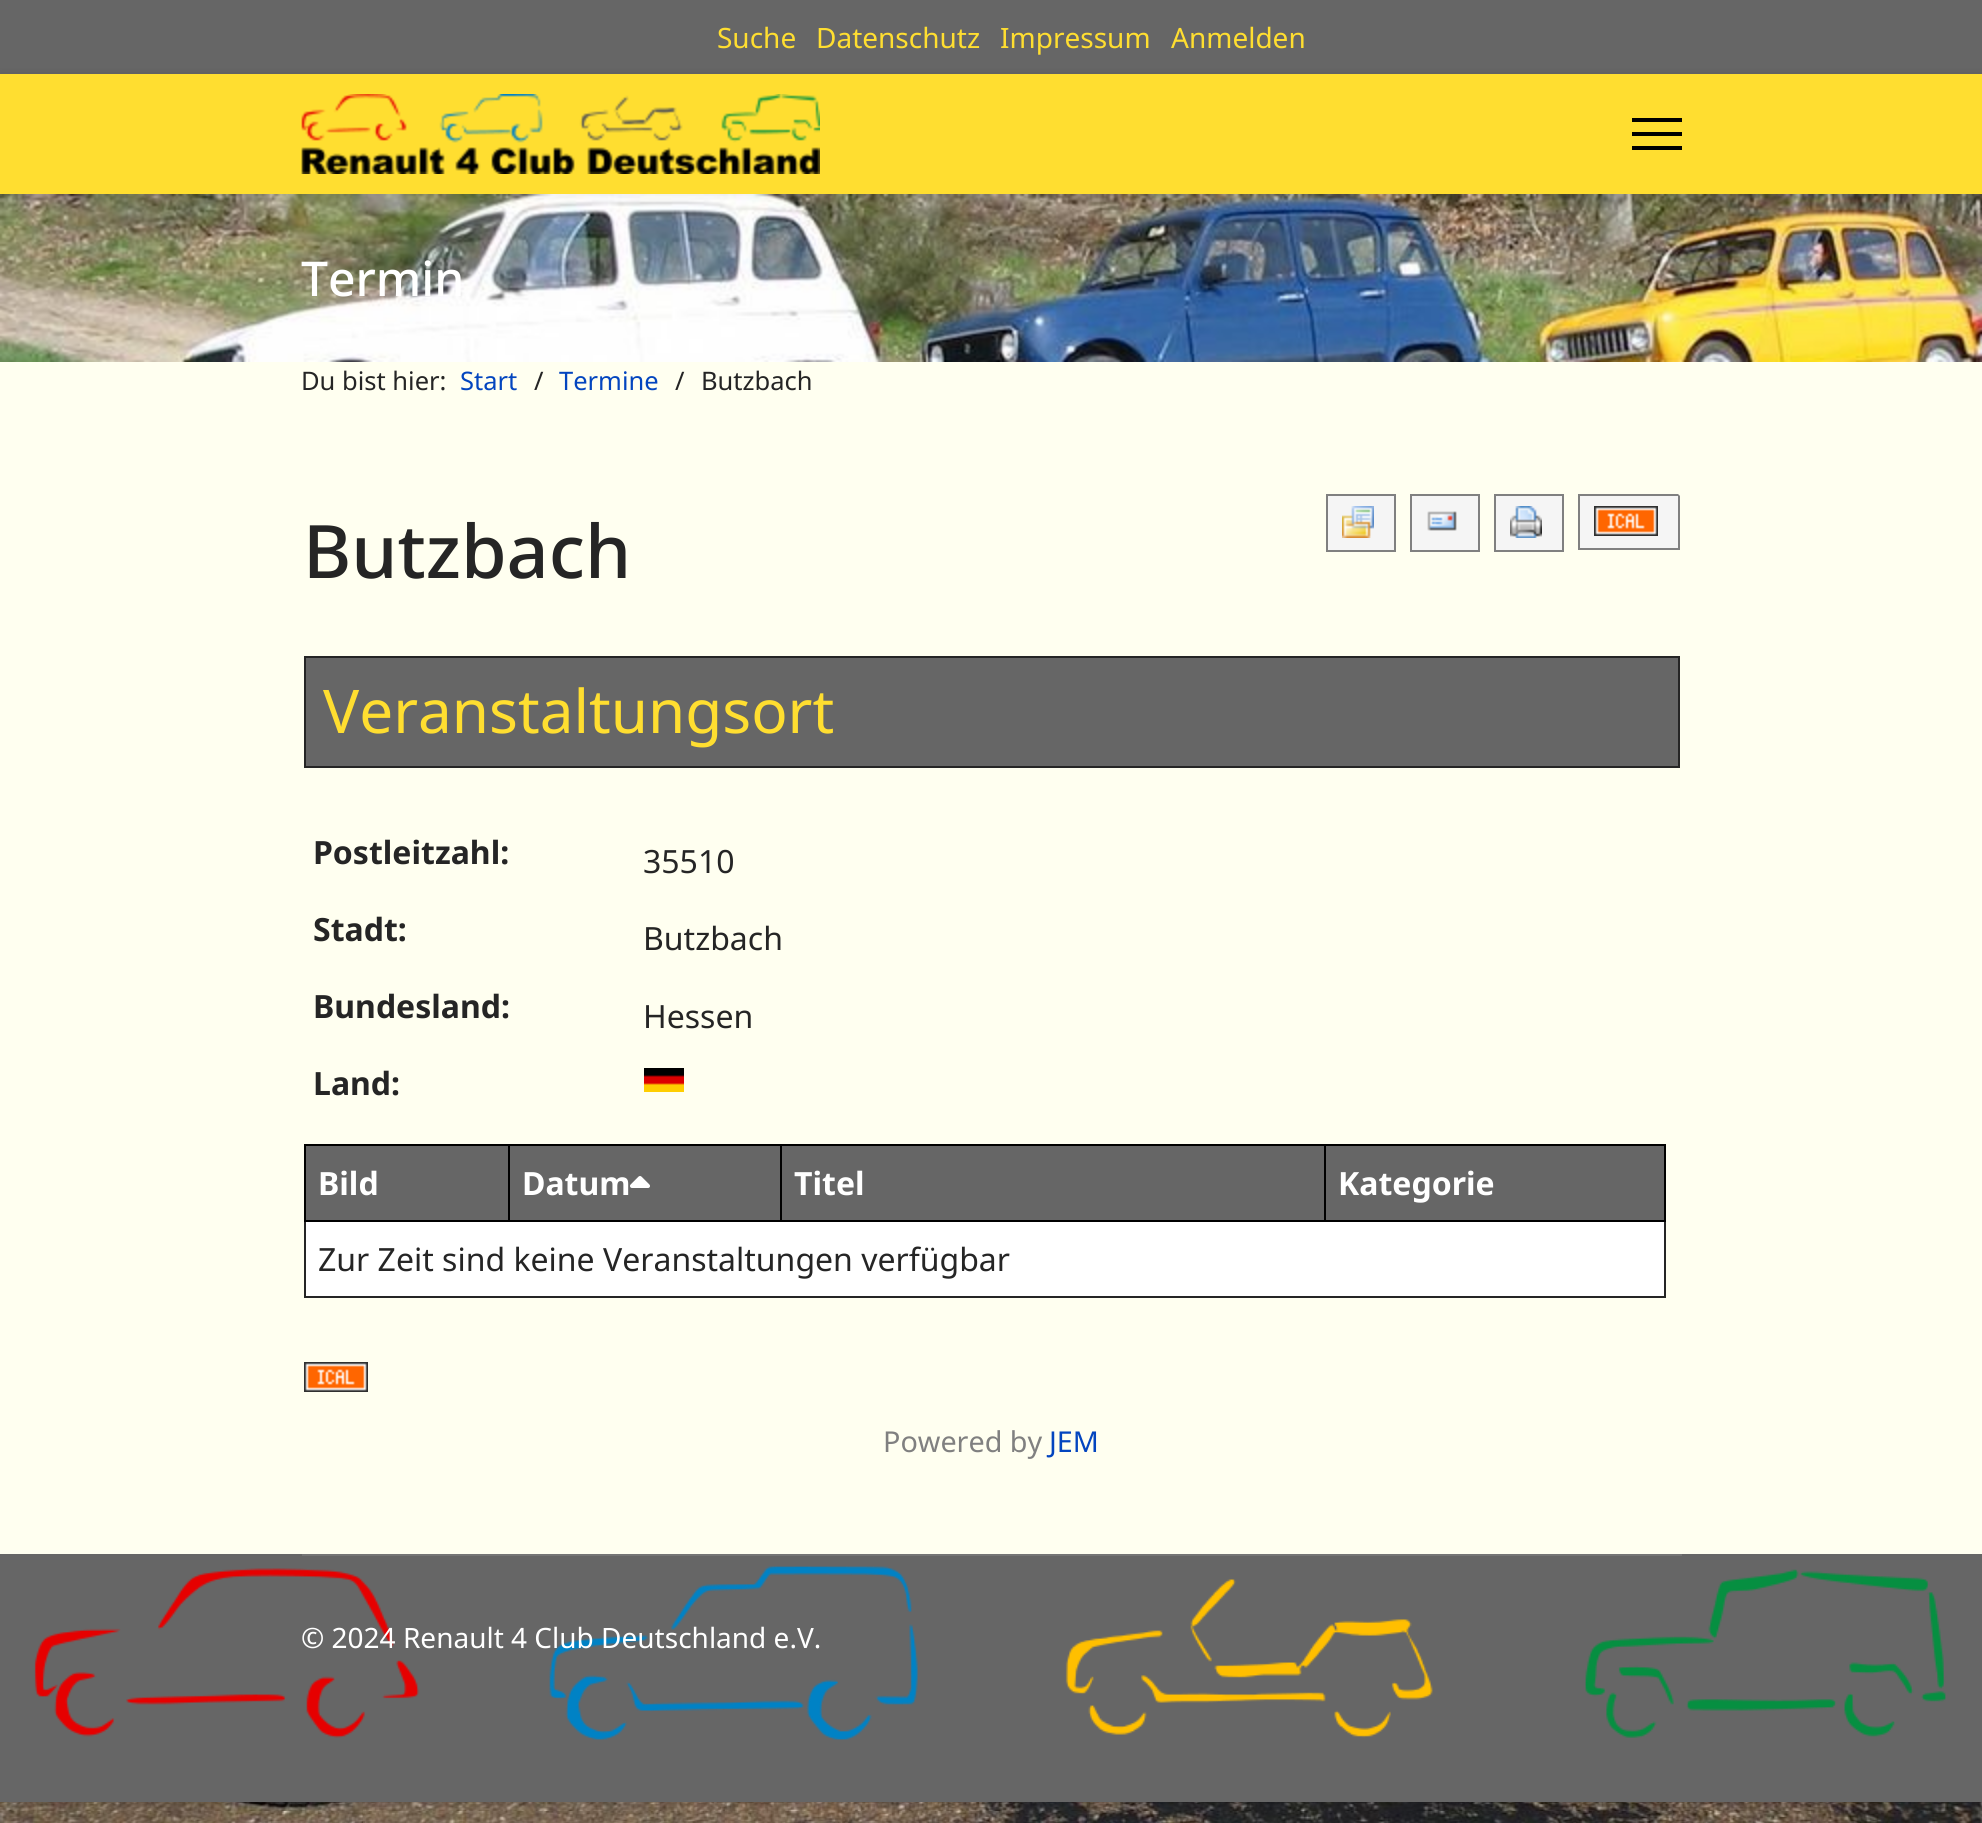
#include <cairo.h>
#include <math.h>
#include <stddef.h>


static void rgb(cairo_t *cr, int r, int g, int b)
{
	cairo_set_source_rgb(cr, r / 255.0, g / 255.0, b / 255.0);
}

static void face(cairo_t *cr, const char *family, double size, int italic, int bold)
{
	cairo_select_font_face(cr, family, italic ? CAIRO_FONT_SLANT_ITALIC : CAIRO_FONT_SLANT_NORMAL,
		bold ? CAIRO_FONT_WEIGHT_BOLD : CAIRO_FONT_WEIGHT_NORMAL);
	cairo_set_font_size(cr, size);
}

static void label(cairo_t *cr, double x, double y, const char *s)
{
	cairo_move_to(cr, x, y);
	cairo_show_text(cr, s);
}

static void rect(cairo_t *cr, double x, double y, double w, double h)
{
	cairo_rectangle(cr, x, y, w, h);
	cairo_fill(cr);
}

static void rrect(cairo_t *cr, double x, double y, double w, double h, double r)
{
	cairo_new_sub_path(cr);
	cairo_arc(cr, x + w - r, y + h - r, r, 0, M_PI / 2);
	cairo_arc(cr, x + r, y + h - r, r, M_PI / 2, M_PI);
	cairo_arc(cr, x + r, y + r, r, M_PI, 1.5 * M_PI);
	cairo_arc(cr, x + w - r, y + r, r, 1.5 * M_PI, 2 * M_PI);
	cairo_close_path(cr);
}

static void soft_shadow(cairo_t *cr, double x, double y, double w, double h, double r, double blur, double alpha)
{
	cairo_push_group_with_content(cr, CAIRO_CONTENT_ALPHA);
	cairo_set_operator(cr, CAIRO_OPERATOR_SOURCE);
	for (int i = 15; i >= -15 && fmin(w, h) + blur * i / 3 > 0; i -= 2) {
		double e = blur * i / 6;
		cairo_set_source_rgba(cr, 0, 0, 0, alpha * erfc((i - 1) / 8.5) / 2);
		rrect(cr, x - e, y - e, w + 2 * e, h + 2 * e, fmax(0, fmin(r + e + blur * .6, fmin(w, h) / 2 + e)));
		cairo_fill(cr);
	}
	cairo_pattern_t *soft = cairo_pop_group(cr);
	cairo_mask(cr, soft);
	cairo_pattern_destroy(soft);
}

static void image(cairo_t *cr, const char *path, double x, double y, double w, double h)
{
	cairo_surface_t *image = cairo_image_surface_create_from_png(path);
	cairo_save(cr);
	cairo_set_source_surface(cr, image, x, y);
	cairo_rectangle(cr, x, y, w, h);
	cairo_fill(cr);
	cairo_restore(cr);
	cairo_surface_destroy(image);
}

static void draw(cairo_t *cr) {
	rgb(cr, 255, 255, 255);
	cairo_paint(cr);
	image(cr, "image0.png", 0, 1802, 1982, 21);
	rgb(cr, 0, 0, 0);
	soft_shadow(cr, 0, 0, 1982, 1802, 0, 5, 0.2);
	rgb(cr, 255, 255, 240);
	rect(cr, 0, 362, 1982, 1192);
	rgb(cr, 102, 102, 102);
	rect(cr, 0, 0, 1982, 74);
	face(cr, "Noto Sans", 28, 0, 0);
	rgb(cr, 255, 222, 48);
	label(cr, 717, 48, "Suche");
	label(cr, 816, 48, "Datenschutz");
	label(cr, 1000, 48, "Impressum");
	label(cr, 1171, 48, "Anmelden");
	image(cr, "image2.png", 0, 194, 1982, 168);
	rgb(cr, 0, 0, 0);
	soft_shadow(cr, 0, 74, 1982, 120, 0, 4, 0.1);
	rgb(cr, 255, 222, 48);
	rect(cr, 0, 74, 1982, 120);
	image(cr, "image1.png", 301, 94, 519, 80);
	rgb(cr, 0, 0, 0);
	rect(cr, 1632, 118, 50, 4);
	rect(cr, 1632, 132, 50, 4);
	rect(cr, 1632, 146, 50, 4);
	face(cr, "Noto Sans Medium", 48, 0, 0);
	rgb(cr, 255, 255, 255);
	label(cr, 301, 296, "Termin");
	face(cr, "Noto Sans", 25.5, 0, 0);
	rgb(cr, 37, 37, 37);
	label(cr, 301, 390, "Du bist hier:");
	rgb(cr, 3, 69, 191);
	label(cr, 460, 390, "Start");
	rgb(cr, 37, 37, 37);
	label(cr, 534, 390, "/");
	rgb(cr, 3, 69, 191);
	label(cr, 559, 390, "Termine");
	rgb(cr, 37, 37, 37);
	label(cr, 675, 390, "/");
	label(cr, 701, 390, "Butzbach");
	face(cr, "Noto Sans Medium", 73.75, 0, 0);
	label(cr, 303, 578, "Butzbach");
	rgb(cr, 245, 245, 245);
	cairo_rectangle(cr, 1327, 495, 68, 56);
	cairo_fill_preserve(cr);
	rgb(cr, 128, 128, 128);
	cairo_stroke(cr);
	image(cr, "image3.png", 1342, 506, 32, 32);
	rgb(cr, 245, 245, 245);
	cairo_rectangle(cr, 1411, 495, 68, 56);
	cairo_fill_preserve(cr);
	rgb(cr, 128, 128, 128);
	cairo_stroke(cr);
	image(cr, "image4.png", 1427, 511, 30, 20);
	rgb(cr, 245, 245, 245);
	cairo_rectangle(cr, 1495, 495, 68, 56);
	cairo_fill_preserve(cr);
	rgb(cr, 128, 128, 128);
	cairo_stroke(cr);
	image(cr, "image5.png", 1510, 506, 32, 32);
	cairo_save(cr);
	rrect(cr, 302, 492, 1380, 1002, 10);
	cairo_clip(cr);
	rgb(cr, 245, 245, 245);
	rect(cr, 1580, 494, 100, 54);
	cairo_restore(cr);
	cairo_set_fill_rule(cr, CAIRO_FILL_RULE_EVEN_ODD);
	cairo_new_path(cr);
	cairo_move_to(cr, 1578, 494);
	cairo_line_to(cr, 1678, 494);
	cairo_line_to(cr, 1680, 496);
	cairo_line_to(cr, 1680, 550);
	cairo_line_to(cr, 1578, 550);
	cairo_close_path(cr);
	cairo_move_to(cr, 1580, 496);
	cairo_line_to(cr, 1580, 548);
	cairo_line_to(cr, 1678, 548);
	cairo_line_to(cr, 1678, 496);
	cairo_close_path(cr);
	cairo_fill(cr);
	image(cr, "image6.png", 1594, 506, 64, 30);
	rgb(cr, 102, 102, 102);
	cairo_rectangle(cr, 305, 657, 1374, 110);
	cairo_fill_preserve(cr);
	rgb(cr, 37, 37, 37);
	cairo_stroke(cr);
	face(cr, "Noto Sans", 60.25, 0, 0);
	rgb(cr, 255, 222, 48);
	label(cr, 323, 733, "Veranstaltungsort");
	face(cr, "Noto Sans", 32, 0, 1);
	rgb(cr, 37, 37, 37);
	label(cr, 313, 864, "Postleitzahl:");
	face(cr, "Noto Sans", 32, 0, 0);
	label(cr, 643, 873, "35510");
	face(cr, "Noto Sans", 32, 0, 1);
	label(cr, 313, 941, "Stadt:");
	face(cr, "Noto Sans", 32, 0, 0);
	label(cr, 643, 950, "Butzbach");
	face(cr, "Noto Sans", 32, 0, 1);
	label(cr, 313, 1018, "Bundesland:");
	face(cr, "Noto Sans", 32, 0, 0);
	label(cr, 643, 1028, "Hessen");
	face(cr, "Noto Sans", 32, 0, 1);
	label(cr, 313, 1095, "Land:");
	image(cr, "image7.png", 644, 1068, 40, 24);
	rgb(cr, 102, 102, 102);
	rect(cr, 306, 1146, 202, 74);
	rgb(cr, 0, 0, 0);
	rect(cr, 1324, 1144, 342, 2);
	rgb(cr, 37, 37, 37);
	rect(cr, 1664, 1220, 2, 78);
	rgb(cr, 0, 0, 0);
	rect(cr, 1664, 1144, 2, 78);
	rect(cr, 1324, 1220, 342, 2);
	rect(cr, 1324, 1144, 2, 78);
	rect(cr, 780, 1144, 546, 2);
	rect(cr, 780, 1220, 546, 2);
	rect(cr, 780, 1144, 2, 78);
	rect(cr, 508, 1144, 274, 2);
	rect(cr, 508, 1220, 274, 2);
	rect(cr, 508, 1144, 2, 78);
	rect(cr, 304, 1144, 206, 2);
	rgb(cr, 37, 37, 37);
	rect(cr, 304, 1296, 1362, 2);
	rect(cr, 304, 1220, 2, 78);
	rgb(cr, 0, 0, 0);
	rect(cr, 304, 1220, 206, 2);
	rect(cr, 304, 1144, 2, 78);
	rgb(cr, 255, 255, 255);
	label(cr, 318, 1195, "Bild");
	rgb(cr, 102, 102, 102);
	rect(cr, 510, 1146, 270, 74);
	rgb(cr, 255, 255, 255);
	label(cr, 522, 1195, "Datum");
	image(cr, "image8.png", 630, 1176, 20, 12);
	rgb(cr, 102, 102, 102);
	rect(cr, 782, 1146, 542, 74);
	rgb(cr, 255, 255, 255);
	label(cr, 794, 1195, "Titel");
	rgb(cr, 102, 102, 102);
	rect(cr, 1326, 1146, 338, 74);
	rgb(cr, 255, 255, 255);
	label(cr, 1338, 1195, "Kategorie");
	rect(cr, 306, 1222, 1358, 74);
	face(cr, "Noto Sans", 32, 0, 0);
	rgb(cr, 37, 37, 37);
	label(cr, 318, 1271, "Zur Zeit sind keine Veranstaltungen verfügbar");
	image(cr, "image6.png", 304, 1362, 64, 30);
	face(cr, "Noto Sans", 28.75, 0, 0);
	rgb(cr, 128, 128, 128);
	label(cr, 883, 1452, "Powered by");
	rgb(cr, 3, 69, 191);
	label(cr, 1049, 1452, "JEM");
	rgb(cr, 102, 102, 102);
	rect(cr, 0, 1554, 1982, 248);
	image(cr, "image9.png", 34, 1566, 1912, 174);
	rgb(cr, 117, 117, 117);
	rect(cr, 302, 1554, 1380, 2);
	face(cr, "Noto Sans", 28, 0, 0);
	rgb(cr, 255, 255, 255);
	label(cr, 301, 1648, "© 2024 Renault 4 Club Deutschland e.V.");
}

int main(void) {
	cairo_surface_t *surface = cairo_image_surface_create(CAIRO_FORMAT_RGB24, 1982, 1823);
	cairo_t *cr = cairo_create(surface);
	cairo_font_options_t *options = cairo_font_options_create();
	cairo_font_options_set_hint_metrics(options, CAIRO_HINT_METRICS_OFF);
	cairo_font_options_set_hint_style(options, CAIRO_HINT_STYLE_NONE);
	cairo_set_font_options(cr, options);
	cairo_set_miter_limit(cr, 4);
	draw(cr);
	cairo_surface_write_to_png(surface, "render.png");
	cairo_font_options_destroy(options);
	cairo_destroy(cr);
	cairo_surface_destroy(surface);
	return 0;
}
